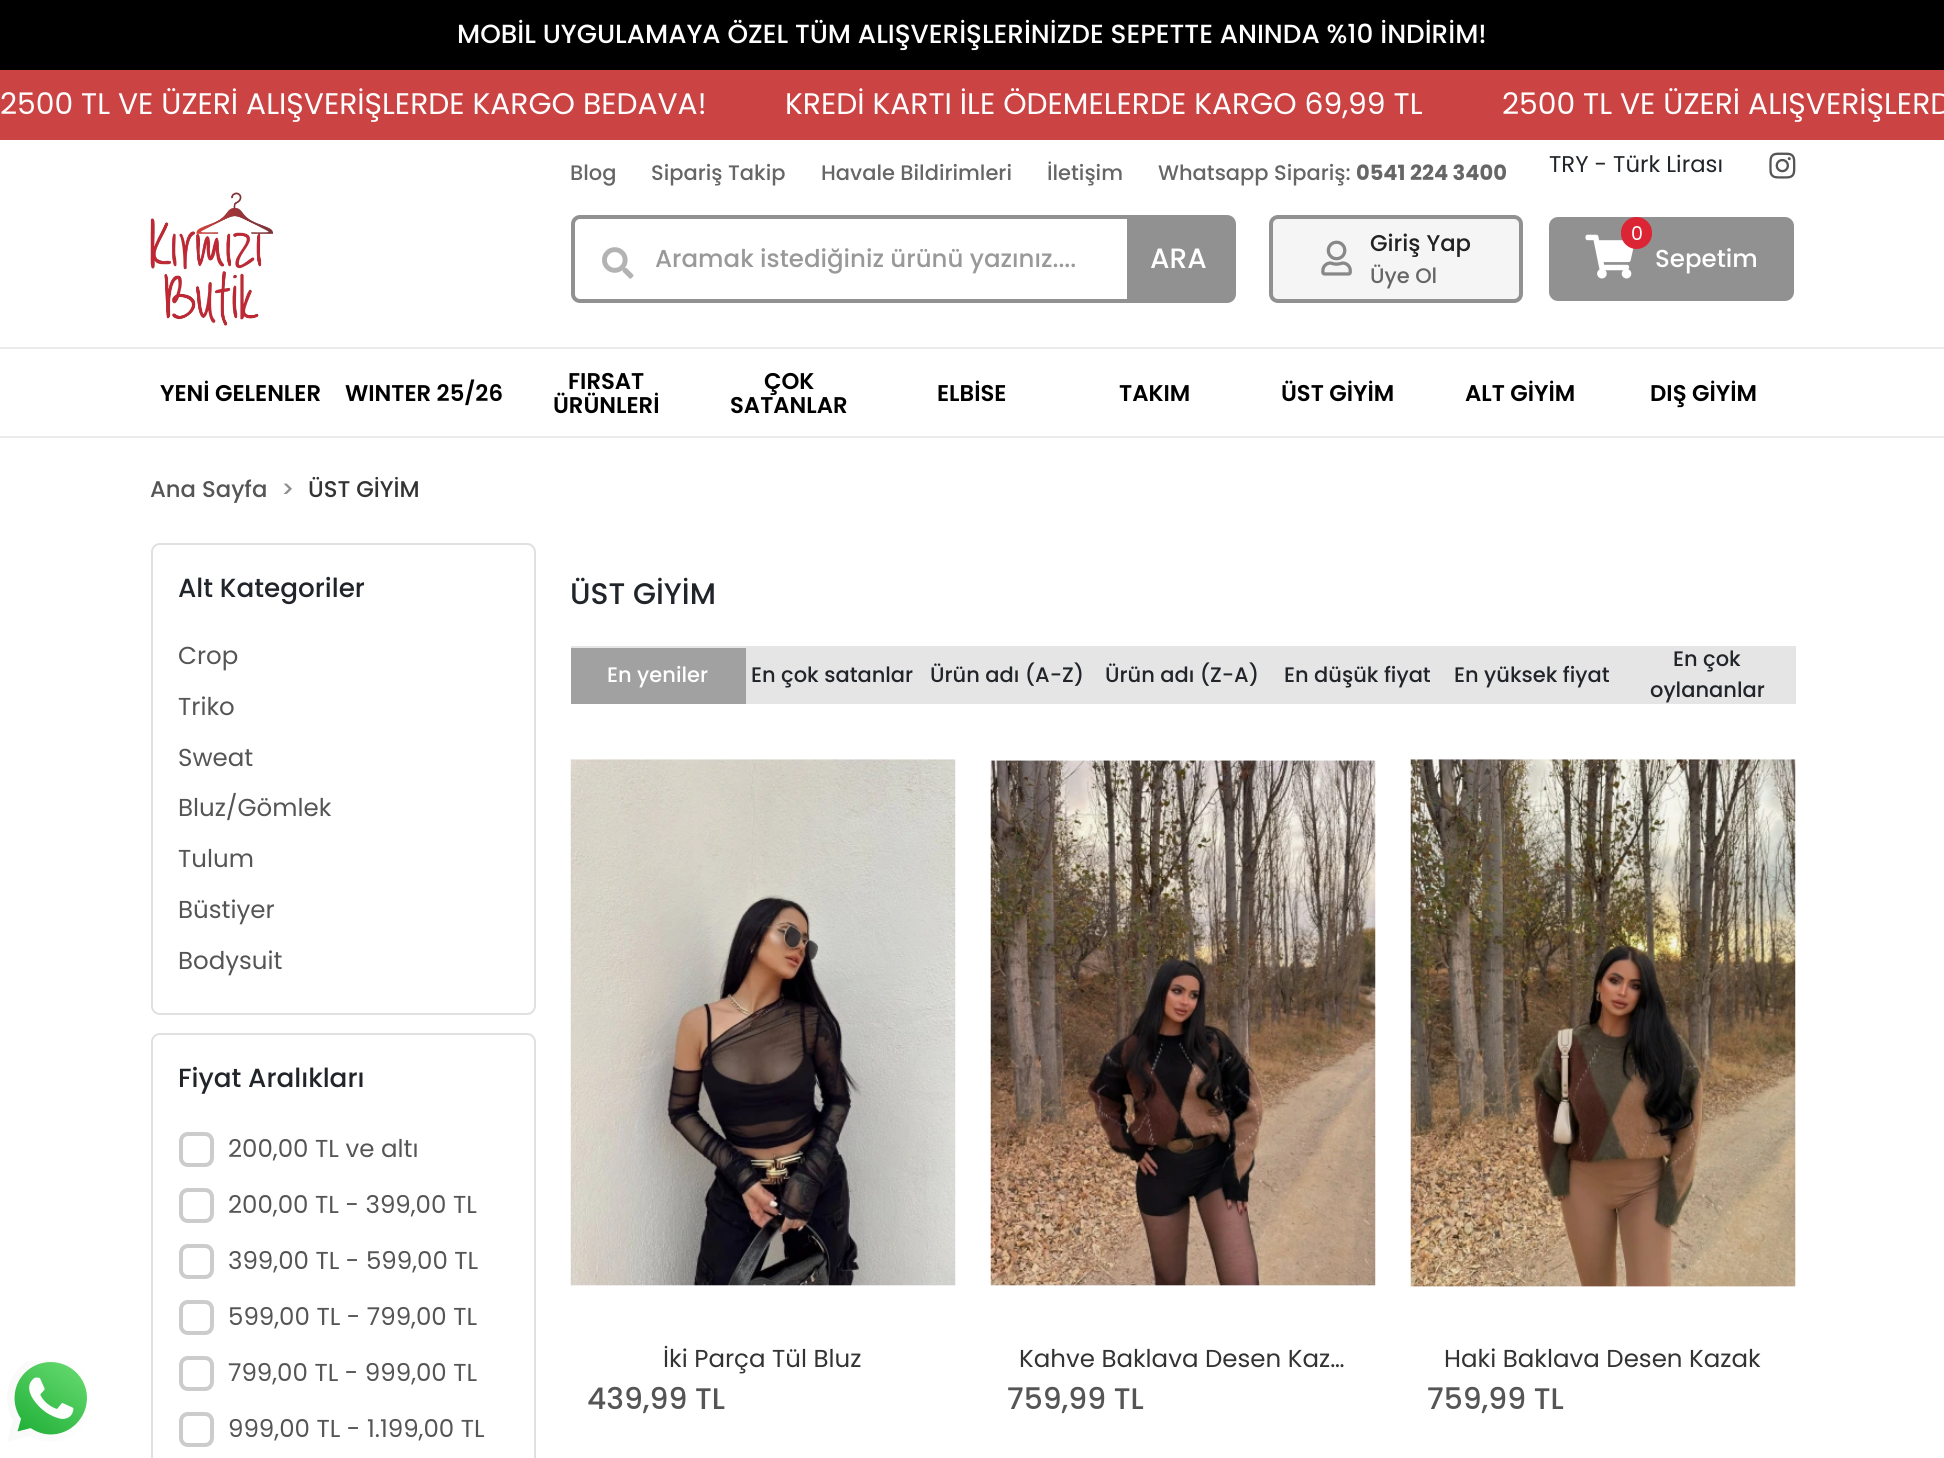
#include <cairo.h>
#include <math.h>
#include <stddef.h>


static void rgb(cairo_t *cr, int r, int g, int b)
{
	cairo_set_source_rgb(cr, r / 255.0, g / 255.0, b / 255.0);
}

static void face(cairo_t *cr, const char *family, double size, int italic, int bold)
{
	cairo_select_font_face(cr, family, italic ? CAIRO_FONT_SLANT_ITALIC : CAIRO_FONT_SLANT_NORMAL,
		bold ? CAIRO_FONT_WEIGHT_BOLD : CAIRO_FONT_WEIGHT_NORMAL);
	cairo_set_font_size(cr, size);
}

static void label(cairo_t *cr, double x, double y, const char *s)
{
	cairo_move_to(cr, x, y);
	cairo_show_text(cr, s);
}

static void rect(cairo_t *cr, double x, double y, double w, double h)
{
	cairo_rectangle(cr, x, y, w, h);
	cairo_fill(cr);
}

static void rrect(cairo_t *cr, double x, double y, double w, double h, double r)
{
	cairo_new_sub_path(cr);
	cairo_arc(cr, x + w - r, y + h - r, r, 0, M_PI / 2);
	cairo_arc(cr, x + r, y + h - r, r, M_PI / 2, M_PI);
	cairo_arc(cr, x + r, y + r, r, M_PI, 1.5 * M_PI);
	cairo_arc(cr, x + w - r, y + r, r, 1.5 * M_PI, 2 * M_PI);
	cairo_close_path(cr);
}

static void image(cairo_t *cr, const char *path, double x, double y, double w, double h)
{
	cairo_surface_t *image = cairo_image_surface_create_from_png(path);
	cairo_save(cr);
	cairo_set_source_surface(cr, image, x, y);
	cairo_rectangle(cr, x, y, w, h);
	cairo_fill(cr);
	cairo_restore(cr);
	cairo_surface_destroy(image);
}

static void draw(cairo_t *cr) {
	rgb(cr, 255, 255, 255);
	cairo_paint(cr);
	rgb(cr, 0, 0, 0);
	rect(cr, 0, 0, 1944, 70);
	face(cr, "Poppins Medium", 26.25, 0, 0);
	rgb(cr, 255, 255, 255);
	label(cr, 457, 43, "MOBİL UYGULAMAYA ÖZEL TÜM ALIŞVERİŞLERİNİZDE SEPETTE ANINDA %10 İNDİRİM!");
	rgb(cr, 203, 67, 67);
	rect(cr, 0, 70, 1944, 70);
	face(cr, "Poppins", 29.75, 0, 0);
	rgb(cr, 255, 255, 255);
	label(cr, 0, 114, "2500 TL VE ÜZERİ ALIŞVERİŞLERDE KARGO BEDAVA!");
	label(cr, 785, 114, "KREDİ KARTI İLE ÖDEMELERDE KARGO 69,99 TL");
	label(cr, 1502, 114, "2500 TL VE ÜZERİ ALIŞVERİŞLERD");
	face(cr, "Poppins Medium", 21, 0, 0);
	rgb(cr, 102, 102, 102);
	label(cr, 570, 180, "Blog");
	label(cr, 651, 180, "Sipariş Takip");
	label(cr, 821, 180, "Havale Bildirimleri");
	label(cr, 1047, 180, "İletişim");
	label(cr, 1158, 180, "Whatsapp Sipariş:");
	face(cr, "Poppins", 21, 0, 1);
	label(cr, 1356, 180, "0541 224 3400");
	face(cr, "Poppins", 22.75, 0, 0);
	rgb(cr, 33, 37, 41);
	label(cr, 1549, 172, "TRY - Türk Lirası");
	image(cr, "image0.png", 1769, 152, 27, 27);
	image(cr, "image1.png", 150, 192, 123, 134);
	rrect(cr, 573, 217, 661, 84, 7);
	rgb(cr, 145, 145, 145);
	cairo_set_line_width(cr, 4);
	cairo_stroke(cr);
	image(cr, "image2.png", 602, 247, 32, 32);
	face(cr, "Poppins Medium", 24.5, 0, 0);
	rgb(cr, 153, 153, 153);
	label(cr, 655, 267, "Aramak istediğiniz ürünü yazınız....");
	rgb(cr, 145, 145, 145);
	cairo_new_path(cr);
	cairo_move_to(cr, 1127, 219);
	cairo_line_to(cr, 1230, 219);
	cairo_curve_to(cr, 1231, 219, 1232, 220, 1232, 221);
	cairo_line_to(cr, 1232, 297);
	cairo_curve_to(cr, 1232, 298, 1231, 299, 1230, 299);
	cairo_line_to(cr, 1127, 299);
	cairo_close_path(cr);
	cairo_fill(cr);
	face(cr, "Poppins Medium", 28, 0, 0);
	rgb(cr, 255, 255, 255);
	label(cr, 1150, 268, "ARA");
	rgb(cr, 245, 245, 245);
	rrect(cr, 1271, 217, 250, 84, 7);
	cairo_fill_preserve(cr);
	rgb(cr, 145, 145, 145);
	cairo_stroke(cr);
	image(cr, "image3.png", 1321, 240, 31, 36);
	face(cr, "Poppins Medium", 22.75, 0, 0);
	rgb(cr, 34, 34, 34);
	label(cr, 1370, 251, "Giriş Yap");
	face(cr, "Poppins Medium", 21, 0, 0);
	rgb(cr, 102, 102, 102);
	label(cr, 1370, 283, "Üye Ol");
	rgb(cr, 145, 145, 145);
	rrect(cr, 1549, 217, 245, 84, 9);
	cairo_fill(cr);
	image(cr, "image4.png", 1585, 234, 49, 45);
	rgb(cr, 219, 37, 52);
	rrect(cr, 1621, 217, 31, 32, 15.5);
	cairo_fill(cr);
	face(cr, "Poppins", 19, 0, 0);
	rgb(cr, 255, 255, 255);
	label(cr, 1631, 240, "0");
	face(cr, "Poppins Medium", 24.5, 0, 0);
	label(cr, 1655, 267, "Sepetim");
	rgb(cr, 235, 235, 235);
	rect(cr, 0, 347, 1944, 2);
	rect(cr, 0, 436, 1944, 2);
	face(cr, "Poppins SemiBold", 22.75, 0, 0);
	rgb(cr, 0, 0, 0);
	label(cr, 160, 401, "YENİ GELENLER");
	label(cr, 345, 401, "WINTER 25/26");
	label(cr, 568, 389, "FIRSAT");
	label(cr, 553, 413, "ÜRÜNLERİ");
	label(cr, 764, 389, "ÇOK");
	label(cr, 730, 413, "SATANLAR");
	label(cr, 937, 401, "ELBİSE");
	label(cr, 1119, 401, "TAKIM");
	label(cr, 1281, 401, "ÜST GİYİM");
	label(cr, 1465, 401, "ALT GİYİM");
	label(cr, 1650, 401, "DIŞ GİYİM");
	face(cr, "Poppins Medium", 22.75, 0, 0);
	rgb(cr, 85, 85, 85);
	label(cr, 150, 497, "Ana Sayfa");
	rgb(cr, 142, 142, 142);
	label(cr, 281, 497, ">");
	rgb(cr, 51, 51, 51);
	label(cr, 308, 497, "ÜST GİYİM");
	image(cr, "image5.png", 7, 1361, 80, 81);
	rrect(cr, 152, 544, 383, 470, 8);
	rgb(cr, 224, 224, 224);
	cairo_set_line_width(cr, 2);
	cairo_stroke(cr);
	face(cr, "Poppins Medium", 26.25, 0, 0);
	rgb(cr, 33, 37, 41);
	label(cr, 178, 597, "Alt Kategoriler");
	cairo_save(cr);
	cairo_rectangle(cr, 179, 632, 329, 355);
	cairo_clip(cr);
	face(cr, "Poppins", 24.5, 0, 0);
	rgb(cr, 85, 85, 85);
	label(cr, 178, 664, "Crop");
	cairo_restore(cr);
	face(cr, "Poppins", 24.5, 0, 0);
	rgb(cr, 85, 85, 85);
	label(cr, 178, 715, "Triko");
	label(cr, 178, 766, "Sweat");
	label(cr, 178, 816, "Bluz/Gömlek");
	label(cr, 178, 867, "Tulum");
	label(cr, 178, 918, "Büstiyer");
	label(cr, 178, 969, "Bodysuit");
	rrect(cr, 152, 1034, 383, 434, 8);
	rgb(cr, 224, 224, 224);
	cairo_stroke(cr);
	face(cr, "Poppins Medium", 26.25, 0, 0);
	rgb(cr, 33, 37, 41);
	label(cr, 178, 1087, "Fiyat Aralıkları");
	rrect(cr, 181, 1134, 31, 31, 7);
	rgb(cr, 204, 204, 204);
	cairo_set_line_width(cr, 4);
	cairo_stroke(cr);
	face(cr, "Poppins", 24.5, 0, 0);
	rgb(cr, 85, 85, 85);
	label(cr, 228, 1157, "200,00 TL ve altı");
	rrect(cr, 181, 1190, 31, 31, 7);
	rgb(cr, 204, 204, 204);
	cairo_stroke(cr);
	rgb(cr, 85, 85, 85);
	label(cr, 228, 1213, "200,00 TL - 399,00 TL");
	rrect(cr, 181, 1246, 31, 31, 7);
	rgb(cr, 204, 204, 204);
	cairo_stroke(cr);
	rgb(cr, 85, 85, 85);
	label(cr, 228, 1269, "399,00 TL - 599,00 TL");
	rrect(cr, 181, 1302, 31, 31, 7);
	rgb(cr, 204, 204, 204);
	cairo_stroke(cr);
	rgb(cr, 85, 85, 85);
	label(cr, 228, 1325, "599,00 TL - 799,00 TL");
	rrect(cr, 181, 1358, 31, 31, 7);
	rgb(cr, 204, 204, 204);
	cairo_stroke(cr);
	rgb(cr, 85, 85, 85);
	label(cr, 228, 1381, "799,00 TL - 999,00 TL");
	rrect(cr, 181, 1414, 31, 31, 7);
	rgb(cr, 204, 204, 204);
	cairo_stroke(cr);
	rgb(cr, 85, 85, 85);
	label(cr, 228, 1437, "999,00 TL - 1.199,00 TL");
	rgb(cr, 230, 230, 230);
	rect(cr, 571, 646, 1225, 2);
	face(cr, "Poppins Medium", 29.75, 0, 0);
	rgb(cr, 33, 37, 41);
	label(cr, 570, 604, "ÜST GİYİM");
	rgb(cr, 229, 229, 229);
	rect(cr, 746, 648, 1050, 56);
	rgb(cr, 161, 161, 161);
	rect(cr, 571, 648, 175, 56);
	face(cr, "Poppins Medium", 21, 0, 0);
	rgb(cr, 255, 255, 255);
	label(cr, 607, 682, "En yeniler");
	rgb(cr, 33, 37, 41);
	label(cr, 751, 682, "En çok satanlar");
	label(cr, 930, 682, "Ürün adı (A-Z)");
	label(cr, 1105, 682, "Ürün adı (Z-A)");
	label(cr, 1284, 682, "En düşük fiyat");
	label(cr, 1454, 682, "En yüksek fiyat");
	label(cr, 1673, 666, "En çok");
	label(cr, 1650, 697, "oylananlar");
	image(cr, "image6.png", 570, 759, 386, 527);
	face(cr, "Poppins", 24.5, 0, 0);
	rgb(cr, 51, 51, 51);
	label(cr, 663, 1367, "İki Parça Tül Bluz");
	face(cr, "Poppins Medium", 29.75, 0, 0);
	rgb(cr, 85, 85, 85);
	label(cr, 587, 1409, "439,99 TL");
	image(cr, "image7.png", 990, 760, 386, 526);
	face(cr, "Poppins", 24.5, 0, 0);
	rgb(cr, 51, 51, 51);
	label(cr, 1019, 1367, "Kahve Baklava Desen Kaz…");
	face(cr, "Poppins Medium", 29.75, 0, 0);
	rgb(cr, 85, 85, 85);
	label(cr, 1007, 1409, "759,99 TL");
	image(cr, "image8.png", 1410, 759, 386, 528);
	face(cr, "Poppins", 24.5, 0, 0);
	rgb(cr, 51, 51, 51);
	label(cr, 1444, 1367, "Haki Baklava Desen Kazak");
	face(cr, "Poppins Medium", 29.75, 0, 0);
	rgb(cr, 85, 85, 85);
	label(cr, 1427, 1409, "759,99 TL");
}

int main(void) {
	cairo_surface_t *surface = cairo_image_surface_create(CAIRO_FORMAT_RGB24, 1944, 1458);
	cairo_t *cr = cairo_create(surface);
	cairo_font_options_t *options = cairo_font_options_create();
	cairo_font_options_set_hint_metrics(options, CAIRO_HINT_METRICS_OFF);
	cairo_font_options_set_hint_style(options, CAIRO_HINT_STYLE_NONE);
	cairo_set_font_options(cr, options);
	cairo_set_miter_limit(cr, 4);
	draw(cr);
	cairo_surface_write_to_png(surface, "render.png");
	cairo_font_options_destroy(options);
	cairo_destroy(cr);
	cairo_surface_destroy(surface);
	return 0;
}
